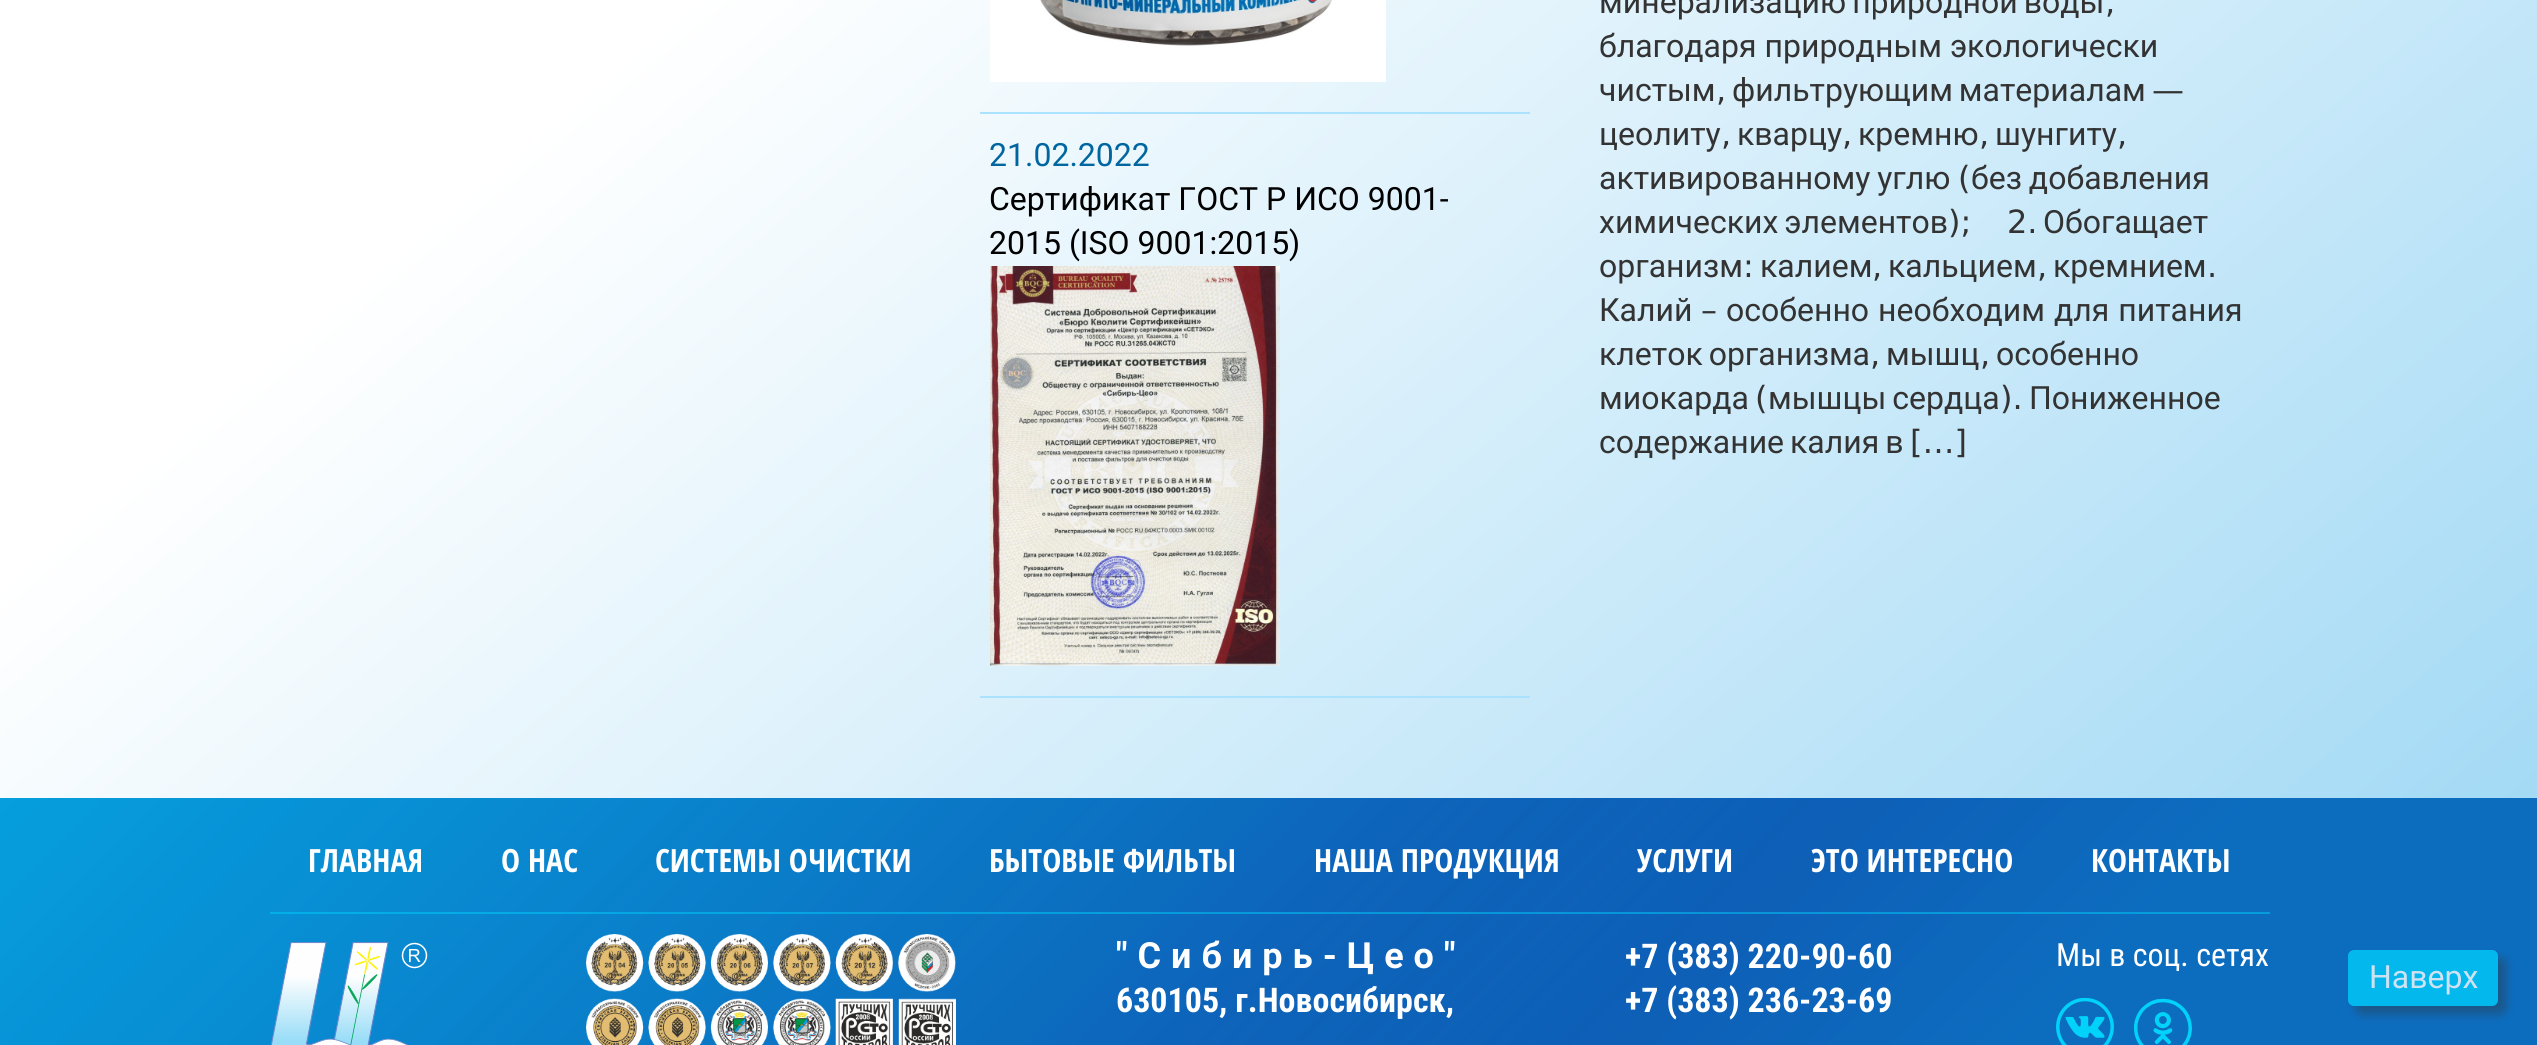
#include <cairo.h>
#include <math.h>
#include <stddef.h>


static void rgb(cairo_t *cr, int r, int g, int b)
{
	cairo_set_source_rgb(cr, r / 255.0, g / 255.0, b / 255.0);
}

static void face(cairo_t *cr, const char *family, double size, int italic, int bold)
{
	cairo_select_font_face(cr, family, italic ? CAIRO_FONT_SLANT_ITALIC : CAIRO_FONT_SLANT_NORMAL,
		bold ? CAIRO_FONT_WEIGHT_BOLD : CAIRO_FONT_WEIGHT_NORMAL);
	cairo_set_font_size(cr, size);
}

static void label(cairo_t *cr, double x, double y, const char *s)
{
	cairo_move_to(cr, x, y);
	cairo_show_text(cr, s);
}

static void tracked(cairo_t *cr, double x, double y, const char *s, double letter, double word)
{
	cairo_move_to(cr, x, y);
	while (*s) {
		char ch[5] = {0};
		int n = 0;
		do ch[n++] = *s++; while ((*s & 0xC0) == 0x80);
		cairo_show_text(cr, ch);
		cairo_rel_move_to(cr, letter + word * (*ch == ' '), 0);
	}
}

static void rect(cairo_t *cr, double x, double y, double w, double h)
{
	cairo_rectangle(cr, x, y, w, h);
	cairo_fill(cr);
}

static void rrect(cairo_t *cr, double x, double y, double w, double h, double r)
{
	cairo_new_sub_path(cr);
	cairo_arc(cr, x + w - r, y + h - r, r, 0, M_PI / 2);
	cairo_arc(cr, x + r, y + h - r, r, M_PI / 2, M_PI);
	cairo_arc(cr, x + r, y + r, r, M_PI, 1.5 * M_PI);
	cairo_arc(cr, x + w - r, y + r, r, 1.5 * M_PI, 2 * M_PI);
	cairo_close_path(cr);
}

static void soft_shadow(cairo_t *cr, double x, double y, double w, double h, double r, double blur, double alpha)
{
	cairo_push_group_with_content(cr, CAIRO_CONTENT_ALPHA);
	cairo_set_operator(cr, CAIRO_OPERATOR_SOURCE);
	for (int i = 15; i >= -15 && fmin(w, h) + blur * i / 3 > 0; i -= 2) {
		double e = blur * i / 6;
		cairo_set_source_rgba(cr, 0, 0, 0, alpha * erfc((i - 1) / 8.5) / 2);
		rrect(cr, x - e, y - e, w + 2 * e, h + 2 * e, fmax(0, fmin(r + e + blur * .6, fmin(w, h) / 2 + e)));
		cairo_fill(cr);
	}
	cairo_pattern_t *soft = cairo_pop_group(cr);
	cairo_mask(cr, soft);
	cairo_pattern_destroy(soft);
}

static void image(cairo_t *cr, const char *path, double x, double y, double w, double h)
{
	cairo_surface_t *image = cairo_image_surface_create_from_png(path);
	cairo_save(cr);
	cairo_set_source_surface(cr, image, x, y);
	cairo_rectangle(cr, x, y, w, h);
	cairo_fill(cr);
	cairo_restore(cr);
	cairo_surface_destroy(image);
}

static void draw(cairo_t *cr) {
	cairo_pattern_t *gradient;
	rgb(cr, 255, 255, 255);
	cairo_paint(cr);
	gradient = cairo_pattern_create_linear(2187, 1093, 351, -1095);
	cairo_pattern_add_color_stop_rgba(gradient, 0, 0.643, 0.855, 0.961, 1);
	cairo_pattern_add_color_stop_rgba(gradient, 0.63, 1, 1, 1, 1);
	cairo_set_source(cr, gradient);
	cairo_pattern_destroy(gradient);
	rect(cr, 0, 0, 2537, 798);
	rgb(cr, 170, 226, 255);
	rect(cr, 980, 112, 550, 2);
	image(cr, "image0.png", 990, 0, 396, 82);
	rect(cr, 980, 696, 550, 2);
	face(cr, "Roboto", 32, 0, 0);
	rgb(cr, 0, 102, 160);
	label(cr, 989, 166, "21.02.2022");
	rgb(cr, 0, 0, 0);
	label(cr, 989, 210, "Сертификат ГОСТ Р ИСО 9001-");
	label(cr, 989, 254, "2015 (ISO 9001:2015)");
	image(cr, "image1.png", 990, 266, 290, 400);
	rgb(cr, 51, 51, 51);
	tracked(cr, 1599, 13, "минерализацию природной воды", 0, -2);
	face(cr, "DejaVu Sans", 32, 0, 0);
	label(cr, 2105, 13, ",");
	face(cr, "Roboto", 32, 0, 0);
	label(cr, 1599, 57, "благодаря природным экологически");
	label(cr, 1599, 101, "чистым");
	tracked(cr, 1732, 101, "фильтрующим материалам", 0, -2);
	face(cr, "DejaVu Sans", 32, 0, 0);
	label(cr, 2152, 101, "—");
	label(cr, 1716, 101, ",");
	face(cr, "Roboto", 32, 0, 0);
	label(cr, 1599, 145, "цеолиту");
	face(cr, "DejaVu Sans", 32, 0, 0);
	label(cr, 1721, 145, ",");
	face(cr, "Roboto", 32, 0, 0);
	label(cr, 1737, 145, "кварцу");
	face(cr, "DejaVu Sans", 32, 0, 0);
	label(cr, 1842, 145, ",");
	face(cr, "Roboto", 32, 0, 0);
	label(cr, 1858, 145, "кремню");
	face(cr, "DejaVu Sans", 32, 0, 0);
	label(cr, 1979, 145, ",");
	face(cr, "Roboto", 32, 0, 0);
	label(cr, 1995, 145, "шунгиту");
	face(cr, "DejaVu Sans", 32, 0, 0);
	label(cr, 2117, 145, ",");
	face(cr, "Roboto", 32, 0, 0);
	tracked(cr, 1599, 189, "активированному углю", 0, -1);
	face(cr, "DejaVu Sans", 32, 0, 0);
	label(cr, 1958, 189, "(");
	face(cr, "Roboto", 32, 0, 0);
	tracked(cr, 1971, 189, "без добавления", 0, -1);
	tracked(cr, 1599, 233, "химических элементов", 0, -2);
	face(cr, "DejaVu Sans", 32, 0, 0);
	label(cr, 1948, 233, ");");
	label(cr, 2007, 233, "2.");
	face(cr, "Roboto", 32, 0, 0);
	label(cr, 2043, 233, "Обогащает");
	label(cr, 1599, 277, "организм");
	face(cr, "DejaVu Sans", 32, 0, 0);
	label(cr, 1743, 277, ":");
	face(cr, "Roboto", 32, 0, 0);
	label(cr, 1760, 277, "калием");
	face(cr, "DejaVu Sans", 32, 0, 0);
	label(cr, 1872, 277, ",");
	face(cr, "Roboto", 32, 0, 0);
	label(cr, 1888, 277, "кальцием");
	face(cr, "DejaVu Sans", 32, 0, 0);
	label(cr, 2037, 277, ",");
	face(cr, "Roboto", 32, 0, 0);
	label(cr, 2053, 277, "кремнием");
	face(cr, "DejaVu Sans", 32, 0, 0);
	label(cr, 2207, 277, ".");
	face(cr, "Roboto", 32, 0, 0);
	label(cr, 1599, 321, "Калий");
	face(cr, "DejaVu Sans", 32, 0, 0);
	label(cr, 1701, 321, "–");
	face(cr, "Roboto", 32, 0, 0);
	tracked(cr, 1726, 321, "особенно необходим для питания", 0, 1);
	tracked(cr, 1599, 365, "клеток организма", 0, -2);
	face(cr, "DejaVu Sans", 32, 0, 0);
	label(cr, 1870, 365, ",");
	face(cr, "Roboto", 32, 0, 0);
	label(cr, 1886, 365, "мышц");
	face(cr, "DejaVu Sans", 32, 0, 0);
	label(cr, 1980, 365, ",");
	face(cr, "Roboto", 32, 0, 0);
	label(cr, 1996, 365, "особенно");
	label(cr, 1599, 409, "миокарда");
	face(cr, "DejaVu Sans", 32, 0, 0);
	label(cr, 1755, 409, "(");
	face(cr, "Roboto", 32, 0, 0);
	tracked(cr, 1768, 409, "мышцы сердца", 0, -2);
	face(cr, "DejaVu Sans", 32, 0, 0);
	label(cr, 2000, 409, ").");
	face(cr, "Roboto", 32, 0, 0);
	label(cr, 2029, 409, "Пониженное");
	tracked(cr, 1599, 453, "содержание калия в", 0, -2);
	face(cr, "DejaVu Sans", 32, 0, 0);
	label(cr, 1910, 453, "[…]");
	gradient = cairo_pattern_create_linear(2007, 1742, 531, 267);
	cairo_pattern_add_color_stop_rgba(gradient, 0.23, 0.024, 0.62, 0.871, 1);
	cairo_pattern_add_color_stop_rgba(gradient, 0.51, 0.059, 0.318, 0.682, 1);
	cairo_set_source(cr, gradient);
	cairo_pattern_destroy(gradient);
	rect(cr, 0, 798, 2537, 247);
	gradient = cairo_pattern_create_linear(2007, 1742, 531, 267);
	cairo_pattern_add_color_stop_rgba(gradient, 0.37, 0.059, 0.318, 0.682, 0.64);
	cairo_pattern_add_color_stop_rgba(gradient, 1, 0, 0.839, 1, 0.58);
	cairo_set_source(cr, gradient);
	cairo_pattern_destroy(gradient);
	rect(cr, 0, 798, 2537, 247);
	face(cr, "Open Sans Condensed", 32, 0, 1);
	rgb(cr, 255, 255, 255);
	label(cr, 308, 872, "ГЛАВНАЯ");
	label(cr, 501, 872, "О НАС");
	label(cr, 655, 872, "СИСТЕМЫ ОЧИСТКИ");
	label(cr, 989, 872, "БЫТОВЫЕ ФИЛЬТЫ");
	label(cr, 1314, 872, "НАША ПРОДУКЦИЯ");
	label(cr, 1637, 872, "УСЛУГИ");
	label(cr, 1811, 872, "ЭТО ИНТЕРЕСНО");
	label(cr, 2091, 872, "КОНТАКТЫ");
	cairo_set_source_rgba(cr, 0, 0.839, 1, 0.46);
	rect(cr, 270, 912, 2000, 2);
	image(cr, "image2.png", 271, 942, 157, 103);
	image(cr, "image3.png", 586, 934, 370, 111);
	face(cr, "Roboto", 36, 0, 1);
	rgb(cr, 255, 255, 255);
	tracked(cr, 1116, 968, "\"Сибирь-Цео\"", 10, 0);
	face(cr, "Roboto Condensed", 34, 0, 1);
	label(cr, 1116, 1012, "630105, г.Новосибирск,");
	label(cr, 1625, 968, "+7 (383) 220-90-60");
	label(cr, 1625, 1012, "+7 (383) 236-23-69");
	face(cr, "Roboto Condensed", 32, 0, 0);
	label(cr, 2056, 966, "Мы в соц. сетях");
	image(cr, "image4.png", 2056, 998, 58, 47);
	image(cr, "image5.png", 2134, 998, 58, 47);
	rgb(cr, 42, 62, 78);
	soft_shadow(cr, 2356, 958, 150, 56, 6, 5, 0.5);
	rgb(cr, 2, 184, 237);
	rrect(cr, 2348, 950, 150, 56, 6);
	cairo_fill(cr);
	face(cr, "Roboto", 32, 0, 0);
	rgb(cr, 206, 226, 242);
	label(cr, 2369, 988, "Наверх");
}

int main(void) {
	cairo_surface_t *surface = cairo_image_surface_create(CAIRO_FORMAT_RGB24, 2537, 1045);
	cairo_t *cr = cairo_create(surface);
	cairo_font_options_t *options = cairo_font_options_create();
	cairo_font_options_set_hint_metrics(options, CAIRO_HINT_METRICS_OFF);
	cairo_font_options_set_hint_style(options, CAIRO_HINT_STYLE_NONE);
	cairo_set_font_options(cr, options);
	cairo_set_miter_limit(cr, 4);
	draw(cr);
	cairo_surface_write_to_png(surface, "render.png");
	cairo_font_options_destroy(options);
	cairo_destroy(cr);
	cairo_surface_destroy(surface);
	return 0;
}
